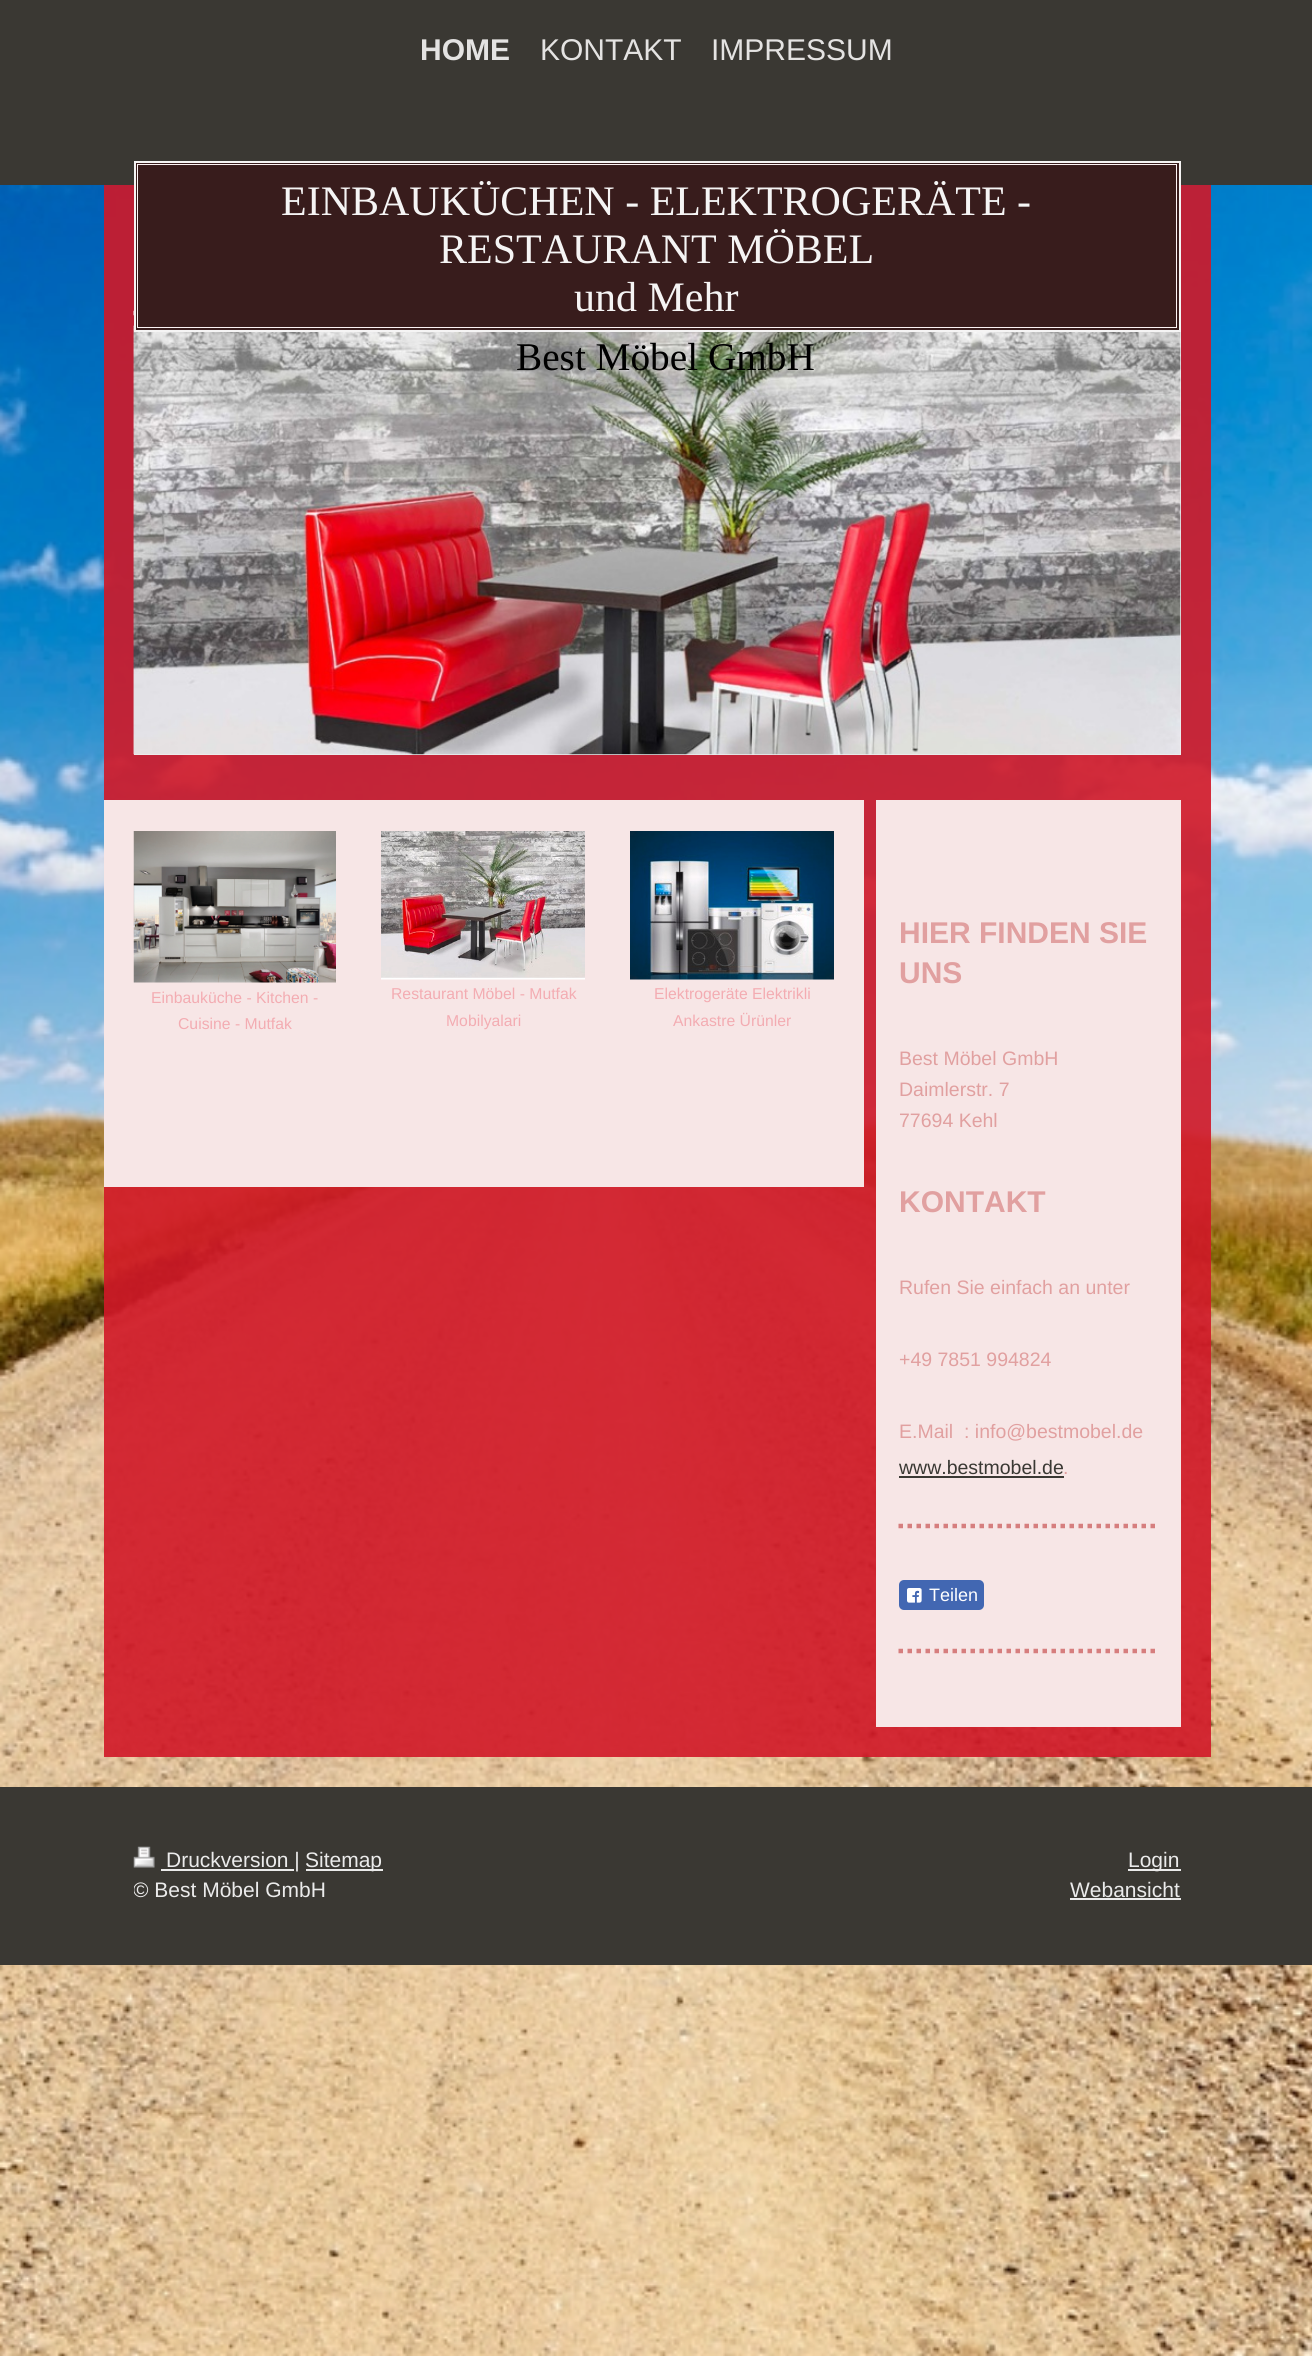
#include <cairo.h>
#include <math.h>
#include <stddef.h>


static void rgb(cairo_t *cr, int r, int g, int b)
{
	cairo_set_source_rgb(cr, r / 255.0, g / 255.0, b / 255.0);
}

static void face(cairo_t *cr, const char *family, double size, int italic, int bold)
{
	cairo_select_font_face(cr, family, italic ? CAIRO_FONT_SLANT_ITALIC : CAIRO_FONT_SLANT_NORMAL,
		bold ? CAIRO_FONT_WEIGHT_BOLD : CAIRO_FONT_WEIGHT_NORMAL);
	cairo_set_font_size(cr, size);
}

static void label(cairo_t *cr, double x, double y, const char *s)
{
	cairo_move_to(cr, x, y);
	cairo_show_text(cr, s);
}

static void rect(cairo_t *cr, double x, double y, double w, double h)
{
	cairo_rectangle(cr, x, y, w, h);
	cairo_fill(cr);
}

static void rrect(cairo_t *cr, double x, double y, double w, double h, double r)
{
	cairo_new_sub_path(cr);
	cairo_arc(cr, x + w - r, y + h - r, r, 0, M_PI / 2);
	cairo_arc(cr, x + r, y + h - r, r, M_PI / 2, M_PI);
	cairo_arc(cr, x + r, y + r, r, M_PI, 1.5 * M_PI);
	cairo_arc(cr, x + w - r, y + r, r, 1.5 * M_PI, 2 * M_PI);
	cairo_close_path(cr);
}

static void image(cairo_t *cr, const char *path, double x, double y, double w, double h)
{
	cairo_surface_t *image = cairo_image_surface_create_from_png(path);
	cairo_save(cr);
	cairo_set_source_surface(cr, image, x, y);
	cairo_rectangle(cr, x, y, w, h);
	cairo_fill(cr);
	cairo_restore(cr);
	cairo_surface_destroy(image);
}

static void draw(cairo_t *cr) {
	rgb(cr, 255, 255, 255);
	cairo_paint(cr);
	image(cr, "image0.png", 0, 185, 1312, 2171);
	rgb(cr, 58, 56, 51);
	rect(cr, 0, 0, 1312, 185);
	face(cr, "Liberation Sans", 30, 0, 1);
	rgb(cr, 228, 227, 226);
	label(cr, 420, 60, "HOME");
	face(cr, "Liberation Sans", 30, 0, 0);
	label(cr, 540, 60, "KONTAKT");
	label(cr, 711, 60, "IMPRESSUM");
	cairo_set_source_rgba(cr, 0.816, 0.094, 0.153, 0.9);
	rect(cr, 104, 185, 1107, 1572);
	cairo_new_path(cr);
	cairo_move_to(cr, 133.5, 313);
	cairo_line_to(cr, 1180.5, 313);
	rgb(cr, 253, 243, 244);
	cairo_set_line_width(cr, 4.5);
	cairo_set_dash(cr, (double[]){4.5, 4.5}, 2, 0);
	cairo_stroke(cr);
	image(cr, "image1.png", 133, 325, 1, 430);
	rgb(cr, 238, 238, 238);
	rect(cr, 134, 332, 1047, 423);
	image(cr, "image2.png", 133, 325, 1048, 430);
	rgb(cr, 56, 28, 28);
	cairo_rectangle(cr, 136.5, 163.5, 1041, 165);
	cairo_fill_preserve(cr);
	rgb(cr, 253, 243, 244);
	cairo_set_line_width(cr, 3);
	cairo_set_dash(cr, NULL, 0, 0);
	cairo_stroke(cr);
	cairo_rectangle(cr, 136, 163, 1042, 166);
	rgb(cr, 56, 28, 28);
	cairo_set_line_width(cr, 2);
	cairo_stroke(cr);
	cairo_rectangle(cr, 135, 162, 1045, 169);
	rgb(cr, 245, 244, 244);
	cairo_stroke(cr);
	face(cr, "Liberation Serif", 42, 0, 0);
	label(cr, 281, 215, "EINBAUKÜCHEN - ELEKTROGERÄTE -");
	label(cr, 439, 263, "RESTAURANT MÖBEL");
	label(cr, 574, 311, "und Mehr");
	face(cr, "Liberation Serif", 39.25, 0, 0);
	rgb(cr, 0, 0, 0);
	label(cr, 516, 370, "Best Möbel GmbH");
	rgb(cr, 247, 230, 230);
	rect(cr, 104, 800, 760, 387);
	image(cr, "image3.png", 133, 831, 203, 152);
	face(cr, "Liberation Sans", 15.75, 0, 0);
	rgb(cr, 243, 172, 178);
	label(cr, 151, 1003, "Einbauküche - Kitchen -");
	label(cr, 178, 1029, "Cuisine - Mutfak");
	image(cr, "image4.png", 381, 831, 204, 149);
	label(cr, 391, 999, "Restaurant Möbel - Mutfak");
	label(cr, 446, 1026, "Mobilyalari");
	image(cr, "image5.png", 630, 831, 204, 149);
	label(cr, 654, 999, "Elektrogeräte Elektrikli");
	label(cr, 673, 1026, "Ankastre Ürünler");
	rgb(cr, 247, 230, 230);
	rect(cr, 876, 800, 305, 927);
	face(cr, "Liberation Sans", 30, 0, 1);
	rgb(cr, 225, 160, 160);
	label(cr, 899, 943, "HIER FINDEN SIE");
	label(cr, 899, 983, "UNS");
	face(cr, "Liberation Sans", 19.5, 0, 0);
	label(cr, 899, 1065, "Best Möbel GmbH");
	label(cr, 899, 1096, "Daimlerstr. 7");
	label(cr, 899, 1127, "77694 Kehl");
	face(cr, "Liberation Sans", 30, 0, 1);
	label(cr, 899, 1212, "KONTAKT");
	face(cr, "Liberation Sans", 19.5, 0, 0);
	label(cr, 899, 1294, "Rufen Sie einfach an unter");
	label(cr, 899, 1366, "+49 7851 994824");
	label(cr, 899, 1438, "E.Mail  : info@bestmobel.de");
	rgb(cr, 58, 56, 51);
	label(cr, 899, 1474, "www.bestmobel.de");
	rect(cr, 899, 1476, 165, 2);
	rgb(cr, 225, 160, 160);
	label(cr, 1063, 1474, ".");
	cairo_new_path(cr);
	cairo_move_to(cr, 898.5, 1526);
	cairo_line_to(cr, 1156.5, 1526);
	rgb(cr, 214, 126, 126);
	cairo_set_line_width(cr, 4.5);
	cairo_set_dash(cr, (double[]){4.5, 4.5}, 2, 0);
	cairo_stroke(cr);
	rgb(cr, 66, 103, 178);
	rrect(cr, 899, 1580, 85, 30, 5);
	cairo_fill(cr);
	image(cr, "image6.png", 907, 1588, 15, 15);
	face(cr, "Liberation Sans", 18, 0, 0);
	rgb(cr, 255, 255, 255);
	label(cr, 929, 1601, "Teilen");
	cairo_new_path(cr);
	cairo_move_to(cr, 898.5, 1651);
	cairo_line_to(cr, 1156.5, 1651);
	rgb(cr, 214, 126, 126);
	cairo_stroke(cr);
	rgb(cr, 58, 56, 51);
	rect(cr, 0, 1787, 1312, 178);
	image(cr, "image7.png", 133, 1846, 22, 22);
	rgb(cr, 235, 235, 235);
	rect(cr, 161, 1869, 133, 2);
	face(cr, "Liberation Sans", 21, 0, 0);
	label(cr, 166, 1867, "Druckversion |");
	rect(cr, 306, 1869, 77, 2);
	label(cr, 305, 1867, "Sitemap");
	cairo_save(cr);
	cairo_rectangle(cr, 134, 1847, 1047, 58);
	cairo_clip(cr);
	label(cr, 133, 1897, "© Best Möbel GmbH");
	cairo_restore(cr);
	rect(cr, 1128, 1869, 53, 2);
	label(cr, 1128, 1867, "Login");
	label(cr, 1070, 1897, "Webansicht");
	rect(cr, 1070, 1898, 111, 2);
}

int main(void) {
	cairo_surface_t *surface = cairo_image_surface_create(CAIRO_FORMAT_RGB24, 1312, 2356);
	cairo_t *cr = cairo_create(surface);
	cairo_font_options_t *options = cairo_font_options_create();
	cairo_font_options_set_hint_metrics(options, CAIRO_HINT_METRICS_OFF);
	cairo_font_options_set_hint_style(options, CAIRO_HINT_STYLE_NONE);
	cairo_set_font_options(cr, options);
	cairo_set_miter_limit(cr, 4);
	draw(cr);
	cairo_surface_write_to_png(surface, "render.png");
	cairo_font_options_destroy(options);
	cairo_destroy(cr);
	cairo_surface_destroy(surface);
	return 0;
}
